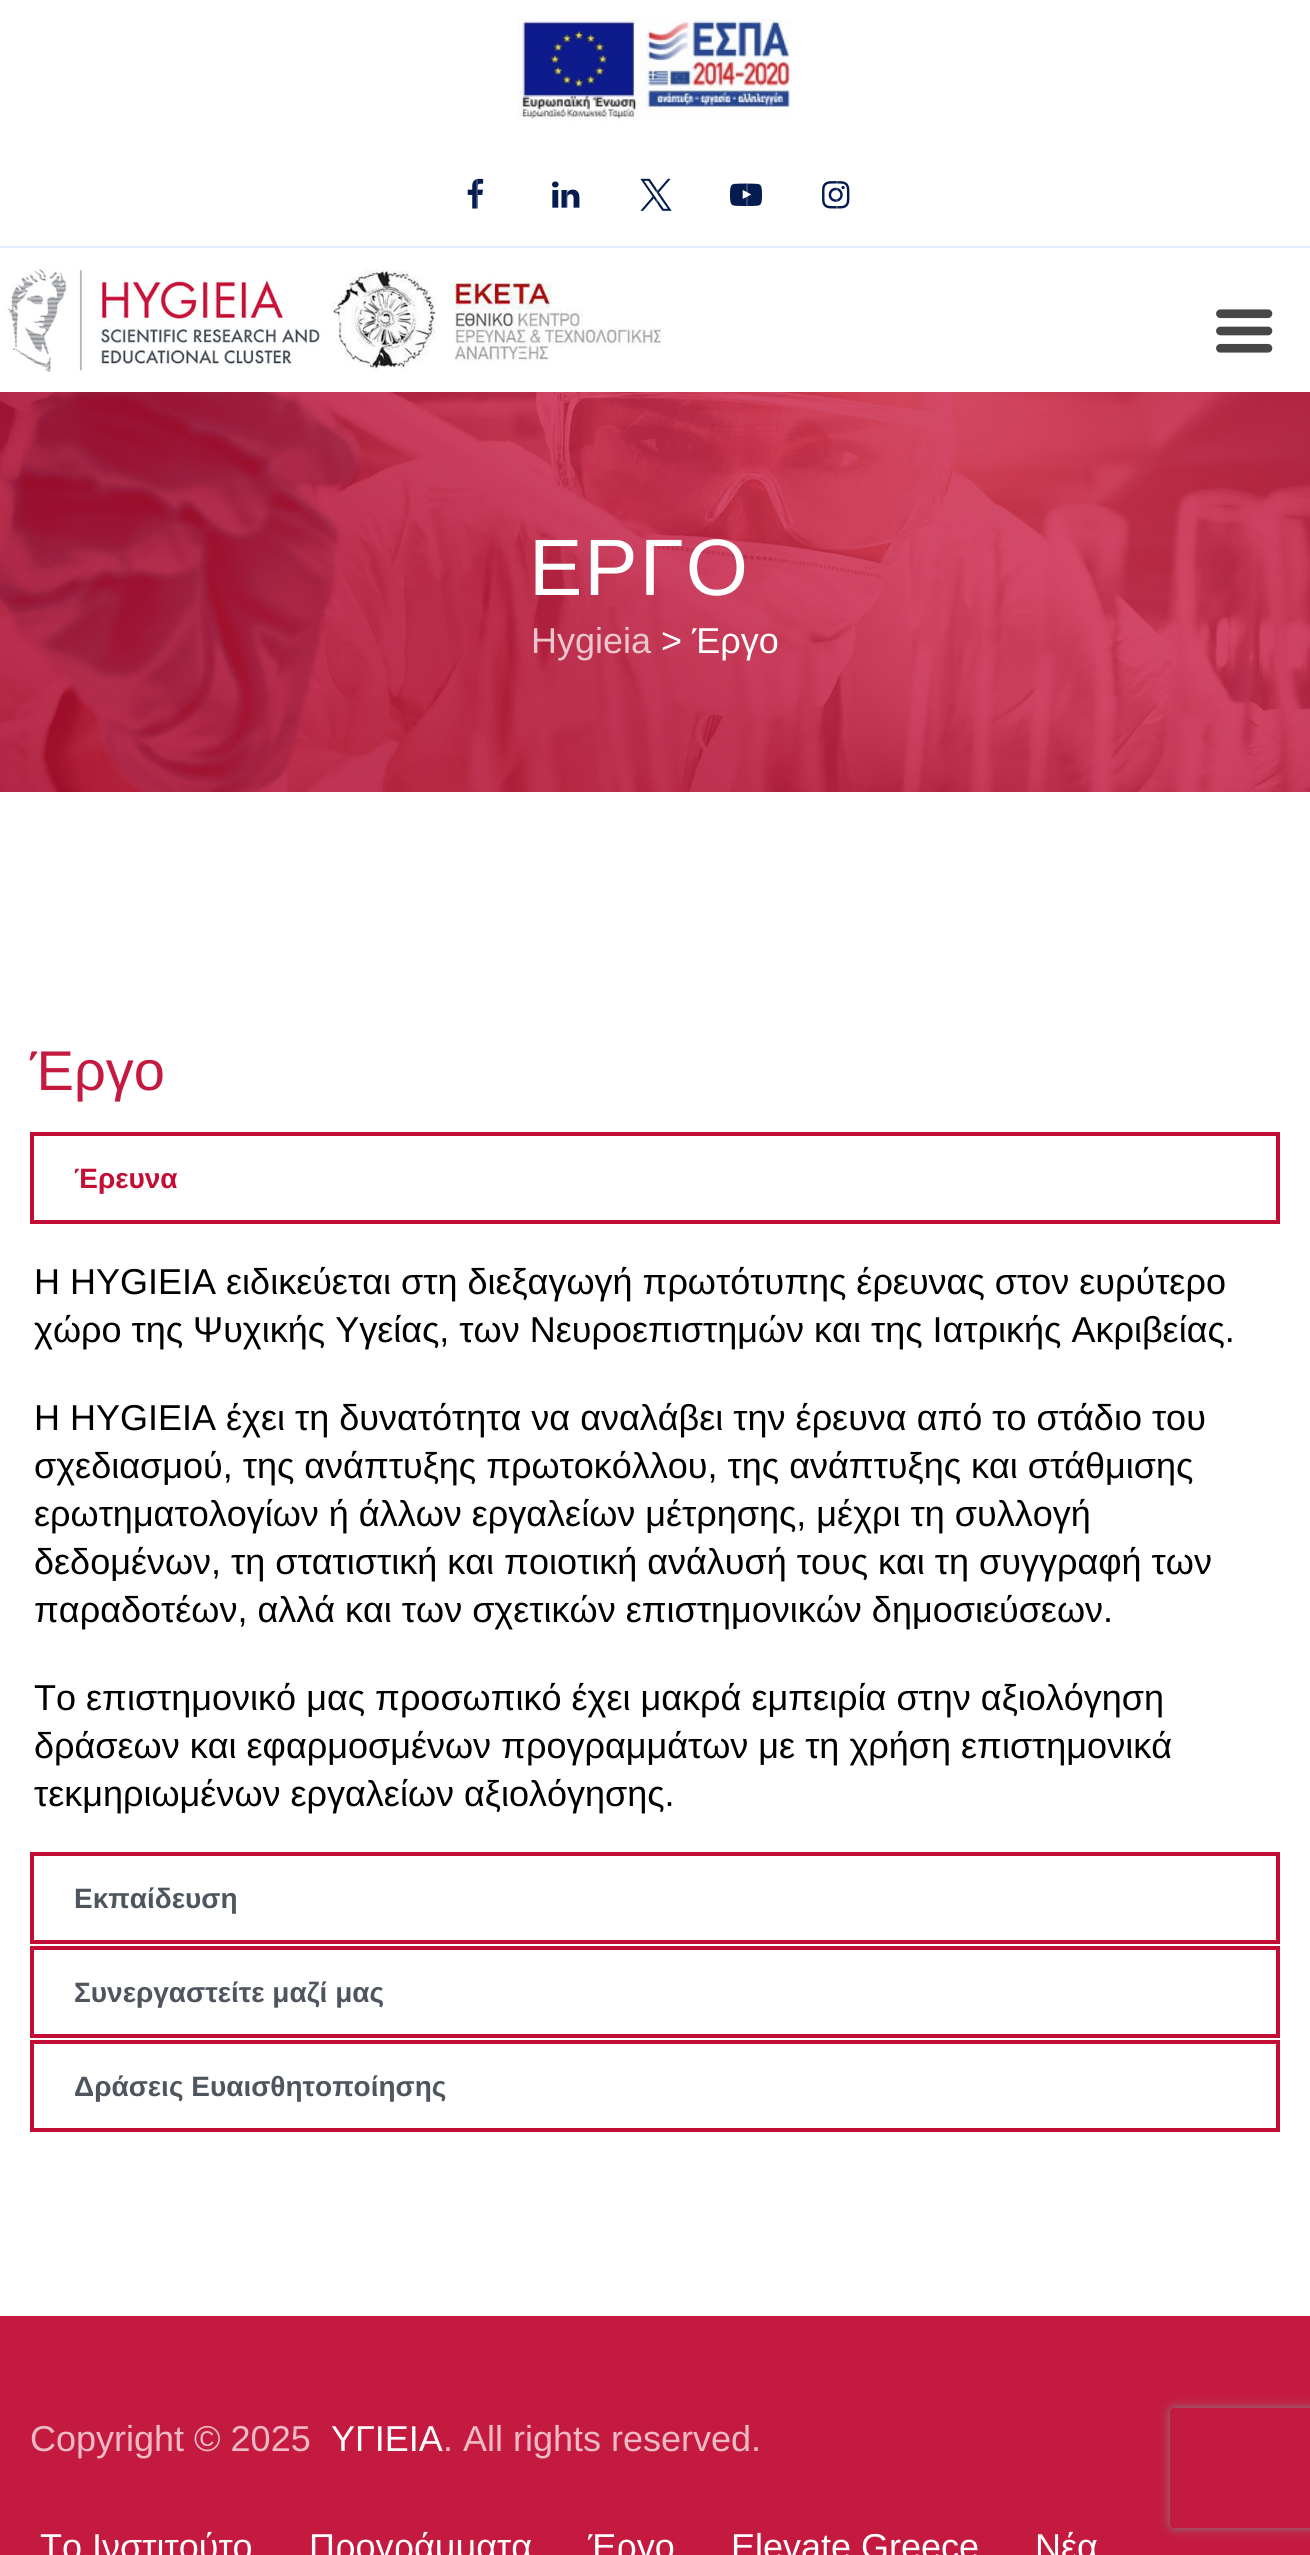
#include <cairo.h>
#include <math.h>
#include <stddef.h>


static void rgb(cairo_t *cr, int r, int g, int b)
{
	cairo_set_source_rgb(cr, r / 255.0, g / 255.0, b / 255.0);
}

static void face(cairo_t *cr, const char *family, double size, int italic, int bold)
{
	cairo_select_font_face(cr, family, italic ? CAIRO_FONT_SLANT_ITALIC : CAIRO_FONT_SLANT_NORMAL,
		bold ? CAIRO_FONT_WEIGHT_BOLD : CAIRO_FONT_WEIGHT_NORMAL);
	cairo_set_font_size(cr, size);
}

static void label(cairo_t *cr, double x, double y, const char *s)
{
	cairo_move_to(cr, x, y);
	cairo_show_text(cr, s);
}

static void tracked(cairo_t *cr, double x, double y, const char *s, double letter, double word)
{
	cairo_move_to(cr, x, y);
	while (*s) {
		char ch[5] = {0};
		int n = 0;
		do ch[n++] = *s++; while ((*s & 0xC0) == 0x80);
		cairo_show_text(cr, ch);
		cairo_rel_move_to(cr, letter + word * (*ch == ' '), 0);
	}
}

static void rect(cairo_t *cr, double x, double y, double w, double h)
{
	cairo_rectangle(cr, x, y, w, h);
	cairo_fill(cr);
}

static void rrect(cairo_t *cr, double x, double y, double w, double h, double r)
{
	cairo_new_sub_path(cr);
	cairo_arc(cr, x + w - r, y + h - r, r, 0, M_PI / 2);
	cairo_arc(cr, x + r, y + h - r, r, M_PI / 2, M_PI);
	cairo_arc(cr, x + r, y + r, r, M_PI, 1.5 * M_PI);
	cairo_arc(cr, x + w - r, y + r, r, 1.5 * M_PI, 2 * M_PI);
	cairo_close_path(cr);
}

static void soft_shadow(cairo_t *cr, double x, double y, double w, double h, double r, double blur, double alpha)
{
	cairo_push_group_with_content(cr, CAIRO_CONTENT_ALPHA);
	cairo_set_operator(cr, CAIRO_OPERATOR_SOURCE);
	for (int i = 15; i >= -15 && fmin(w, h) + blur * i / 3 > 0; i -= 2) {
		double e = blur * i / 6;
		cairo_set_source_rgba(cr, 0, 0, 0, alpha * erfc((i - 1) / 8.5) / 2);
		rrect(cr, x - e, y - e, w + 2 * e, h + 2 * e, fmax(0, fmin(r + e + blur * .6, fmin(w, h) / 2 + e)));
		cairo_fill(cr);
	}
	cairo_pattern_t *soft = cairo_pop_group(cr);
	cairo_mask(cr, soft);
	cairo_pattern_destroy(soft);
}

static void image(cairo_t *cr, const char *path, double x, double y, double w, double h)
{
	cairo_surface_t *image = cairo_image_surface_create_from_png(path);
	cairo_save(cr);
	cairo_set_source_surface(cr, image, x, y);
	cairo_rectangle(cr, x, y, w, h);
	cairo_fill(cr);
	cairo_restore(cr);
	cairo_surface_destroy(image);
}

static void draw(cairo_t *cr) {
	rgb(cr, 255, 255, 255);
	cairo_paint(cr);
	rgb(cr, 225, 238, 255);
	rect(cr, 0, 246, 1310, 2);
	image(cr, "image0.png", 517, 18, 276, 103);
	image(cr, "image1.png", 467, 178, 17, 31);
	cairo_set_source_rgba(cr, 1, 1, 1, 0.2);
	rect(cr, 476, 178, 2, 31);
	image(cr, "image2.png", 552, 181, 28, 27);
	rect(cr, 566, 190, 2, 18);
	image(cr, "image3.png", 640, 178, 32, 33);
	rect(cr, 656, 188, 2, 17);
	image(cr, "image4.png", 730, 183, 32, 24);
	rect(cr, 746, 183, 2, 24);
	image(cr, "image5.png", 822, 181, 28, 28);
	rect(cr, 836, 181, 2, 28);
	image(cr, "image6.png", 5, 268, 657, 104);
	image(cr, "image7.png", 1216, 309, 57, 44);
	image(cr, "image8.png", 0, 392, 1310, 400);
	face(cr, "Liberation Sans", 80, 0, 0);
	rgb(cr, 255, 255, 255);
	tracked(cr, 529, 595, "ΕΡΓΟ", 2, 0);
	face(cr, "Liberation Sans", 36, 0, 0);
	rgb(cr, 236, 197, 205);
	label(cr, 531, 653, "Hygieia");
	rgb(cr, 255, 255, 255);
	label(cr, 661, 653, "> Έργο");
	face(cr, "Liberation Sans", 56, 0, 0);
	rgb(cr, 197, 26, 63);
	label(cr, 30, 1090, "Έργο");
	cairo_rectangle(cr, 32, 1134, 1246, 88);
	rgb(cr, 196, 13, 53);
	cairo_set_line_width(cr, 4);
	cairo_stroke(cr);
	face(cr, "Liberation Sans", 28, 0, 1);
	label(cr, 74, 1188, "Έρευνα");
	face(cr, "Liberation Sans", 36, 0, 0);
	rgb(cr, 0, 0, 0);
	label(cr, 34, 1294, "Η HYGIEIA ειδικεύεται στη διεξαγωγή πρωτότυπης έρευνας στον ευρύτερο");
	label(cr, 34, 1342, "χώρο της Ψυχικής Υγείας, των Νευροεπιστημών και της Ιατρικής Ακριβείας.");
	label(cr, 34, 1430, "Η HYGIEIA έχει τη δυνατότητα να αναλάβει την έρευνα από το στάδιο του");
	label(cr, 34, 1478, "σχεδιασμού, της ανάπτυξης πρωτοκόλλου, της ανάπτυξης και στάθμισης");
	label(cr, 34, 1526, "ερωτηματολογίων ή άλλων εργαλείων μέτρησης, μέχρι τη συλλογή");
	label(cr, 34, 1574, "δεδομένων, τη στατιστική και ποιοτική ανάλυσή τους και τη συγγραφή των");
	label(cr, 34, 1622, "παραδοτέων, αλλά και των σχετικών επιστημονικών δημοσιεύσεων.");
	label(cr, 34, 1710, "Το επιστημονικό μας προσωπικό έχει μακρά εμπειρία στην αξιολόγηση");
	label(cr, 34, 1758, "δράσεων και εφαρμοσμένων προγραμμάτων με τη χρήση επιστημονικά");
	label(cr, 34, 1806, "τεκμηριωμένων εργαλείων αξιολόγησης.");
	cairo_rectangle(cr, 32, 1854, 1246, 88);
	rgb(cr, 196, 13, 53);
	cairo_stroke(cr);
	face(cr, "Liberation Sans", 28, 0, 1);
	rgb(cr, 78, 85, 94);
	label(cr, 74, 1908, "Εκπαίδευση");
	cairo_rectangle(cr, 32, 1948, 1246, 88);
	rgb(cr, 196, 13, 53);
	cairo_stroke(cr);
	rgb(cr, 78, 85, 94);
	label(cr, 74, 2002, "Συνεργαστείτε μαζί μας");
	cairo_rectangle(cr, 32, 2042, 1246, 88);
	rgb(cr, 196, 13, 53);
	cairo_stroke(cr);
	rgb(cr, 78, 85, 94);
	label(cr, 74, 2096, "Δράσεις Ευαισθητοποίησης");
	rgb(cr, 197, 26, 63);
	rect(cr, 0, 2316, 1310, 239);
	face(cr, "Liberation Sans", 36, 0, 0);
	rgb(cr, 238, 186, 197);
	label(cr, 30, 2451, "Copyright © 2025");
	rgb(cr, 255, 255, 255);
	label(cr, 331, 2451, "ΥΓΙΕΙΑ");
	rgb(cr, 238, 186, 197);
	label(cr, 443, 2451, ". All rights reserved.");
	rgb(cr, 255, 255, 255);
	label(cr, 40, 2559, "Το Ινστιτούτο");
	label(cr, 309, 2559, "Προγράμματα");
	label(cr, 588, 2559, "Έργο");
	label(cr, 731, 2559, "Elevate Greece");
	label(cr, 1035, 2559, "Νέα");
	cairo_save(cr);
	cairo_set_fill_rule(cr, CAIRO_FILL_RULE_EVEN_ODD);
	cairo_new_path(cr);
	cairo_move_to(cr, 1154, 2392);
	cairo_line_to(cr, 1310, 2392);
	cairo_line_to(cr, 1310, 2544);
	cairo_line_to(cr, 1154, 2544);
	cairo_close_path(cr);
	cairo_move_to(cr, 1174, 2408);
	cairo_line_to(cr, 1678, 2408);
	cairo_curve_to(cr, 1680, 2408, 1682, 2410, 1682, 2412);
	cairo_line_to(cr, 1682, 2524);
	cairo_curve_to(cr, 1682, 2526, 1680, 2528, 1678, 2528);
	cairo_line_to(cr, 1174, 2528);
	cairo_curve_to(cr, 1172, 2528, 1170, 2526, 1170, 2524);
	cairo_line_to(cr, 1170, 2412);
	cairo_curve_to(cr, 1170, 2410, 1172, 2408, 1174, 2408);
	cairo_close_path(cr);
	cairo_clip(cr);
	rgb(cr, 128, 128, 128);
	soft_shadow(cr, 1170, 2408, 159, 120, 4, 5, 1);
	cairo_restore(cr);
}

int main(void) {
	cairo_surface_t *surface = cairo_image_surface_create(CAIRO_FORMAT_RGB24, 1310, 2555);
	cairo_t *cr = cairo_create(surface);
	cairo_font_options_t *options = cairo_font_options_create();
	cairo_font_options_set_hint_metrics(options, CAIRO_HINT_METRICS_OFF);
	cairo_font_options_set_hint_style(options, CAIRO_HINT_STYLE_NONE);
	cairo_set_font_options(cr, options);
	cairo_set_miter_limit(cr, 4);
	draw(cr);
	cairo_surface_write_to_png(surface, "render.png");
	cairo_font_options_destroy(options);
	cairo_destroy(cr);
	cairo_surface_destroy(surface);
	return 0;
}
